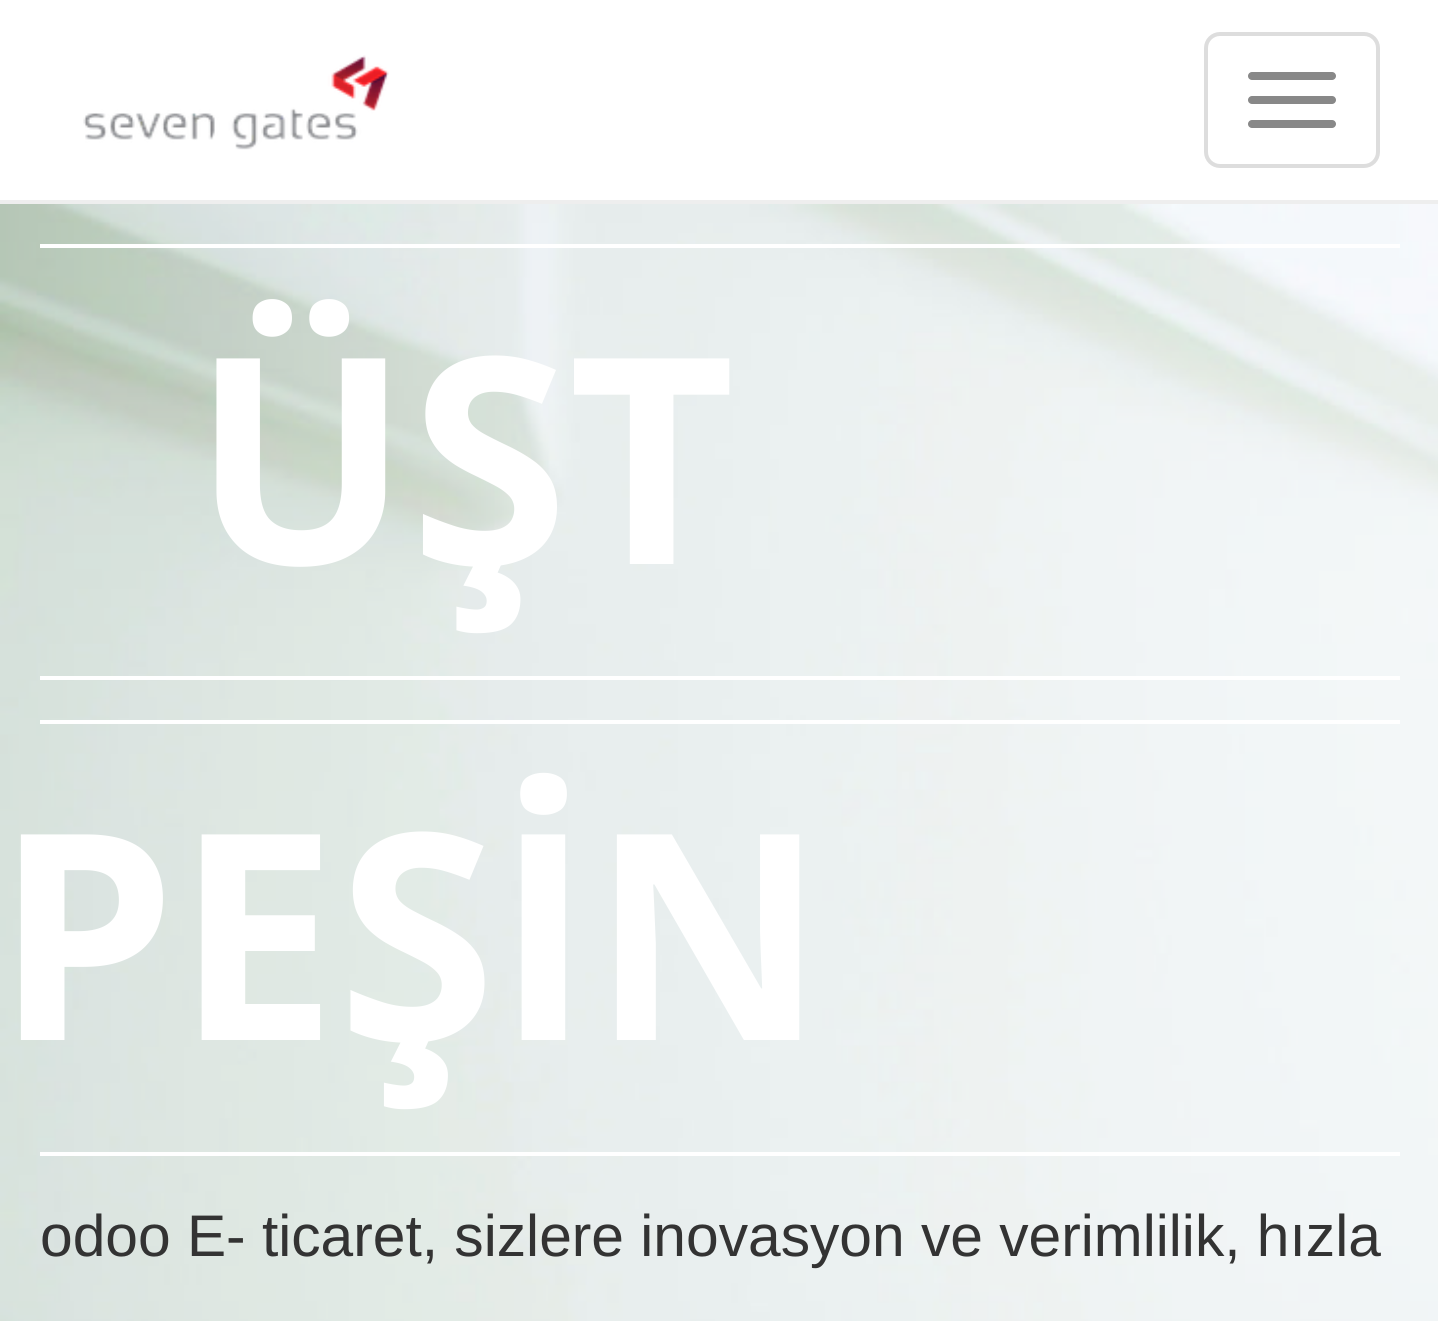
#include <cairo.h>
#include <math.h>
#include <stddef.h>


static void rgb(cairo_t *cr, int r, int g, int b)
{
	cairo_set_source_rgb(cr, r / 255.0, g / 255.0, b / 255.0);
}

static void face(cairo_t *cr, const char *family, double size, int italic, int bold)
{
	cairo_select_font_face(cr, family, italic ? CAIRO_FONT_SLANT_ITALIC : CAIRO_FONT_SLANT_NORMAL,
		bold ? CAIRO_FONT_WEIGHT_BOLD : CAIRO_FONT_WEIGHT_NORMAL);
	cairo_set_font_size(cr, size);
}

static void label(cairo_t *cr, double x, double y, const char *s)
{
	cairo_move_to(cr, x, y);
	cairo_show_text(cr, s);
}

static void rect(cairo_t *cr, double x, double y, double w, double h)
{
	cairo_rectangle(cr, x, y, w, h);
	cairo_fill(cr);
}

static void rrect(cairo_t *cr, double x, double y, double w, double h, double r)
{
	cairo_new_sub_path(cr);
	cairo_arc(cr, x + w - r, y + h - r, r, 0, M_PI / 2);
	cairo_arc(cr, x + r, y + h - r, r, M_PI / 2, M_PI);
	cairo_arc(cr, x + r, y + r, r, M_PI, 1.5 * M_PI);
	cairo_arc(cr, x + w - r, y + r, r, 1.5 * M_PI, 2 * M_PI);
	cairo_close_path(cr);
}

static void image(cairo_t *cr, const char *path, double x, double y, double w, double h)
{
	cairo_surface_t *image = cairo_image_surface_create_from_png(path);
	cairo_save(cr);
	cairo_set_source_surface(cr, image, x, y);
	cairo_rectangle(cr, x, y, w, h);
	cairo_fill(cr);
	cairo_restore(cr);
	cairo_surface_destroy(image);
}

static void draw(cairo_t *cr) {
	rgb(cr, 255, 255, 255);
	cairo_paint(cr);
	rgb(cr, 238, 238, 238);
	rect(cr, 0, 200, 1438, 4);
	image(cr, "image0.png", 83, 55, 306, 95);
	rrect(cr, 1206, 34, 172, 132, 14);
	rgb(cr, 221, 221, 221);
	cairo_set_line_width(cr, 4);
	cairo_stroke(cr);
	rgb(cr, 136, 136, 136);
	rrect(cr, 1248, 72, 88, 8, 4);
	cairo_fill(cr);
	rrect(cr, 1248, 96, 88, 8, 4);
	cairo_fill(cr);
	rrect(cr, 1248, 120, 88, 8, 4);
	cairo_fill(cr);
	image(cr, "image1.png", 0, 204, 1438, 1117);
	rgb(cr, 255, 255, 255);
	rect(cr, 40, 244, 1360, 4);
	rect(cr, 40, 676, 1360, 4);
	face(cr, "Open Sans", 288, 0, 1);
	label(cr, 192, 564, "ÜŞT");
	rect(cr, 40, 720, 1360, 4);
	rect(cr, 40, 1152, 1360, 4);
	label(cr, -5, 1040, "PEŞİN");
	face(cr, "Liberation Sans", 58.7, 0, 0);
	rgb(cr, 51, 51, 51);
	label(cr, 40, 1256, "odoo E- ticaret, sizlere inovasyon ve verimlilik, hızla");
}

int main(void) {
	cairo_surface_t *surface = cairo_image_surface_create(CAIRO_FORMAT_RGB24, 1438, 1321);
	cairo_t *cr = cairo_create(surface);
	cairo_font_options_t *options = cairo_font_options_create();
	cairo_font_options_set_hint_metrics(options, CAIRO_HINT_METRICS_OFF);
	cairo_font_options_set_hint_style(options, CAIRO_HINT_STYLE_NONE);
	cairo_set_font_options(cr, options);
	cairo_set_miter_limit(cr, 4);
	draw(cr);
	cairo_surface_write_to_png(surface, "render.png");
	cairo_font_options_destroy(options);
	cairo_destroy(cr);
	cairo_surface_destroy(surface);
	return 0;
}
